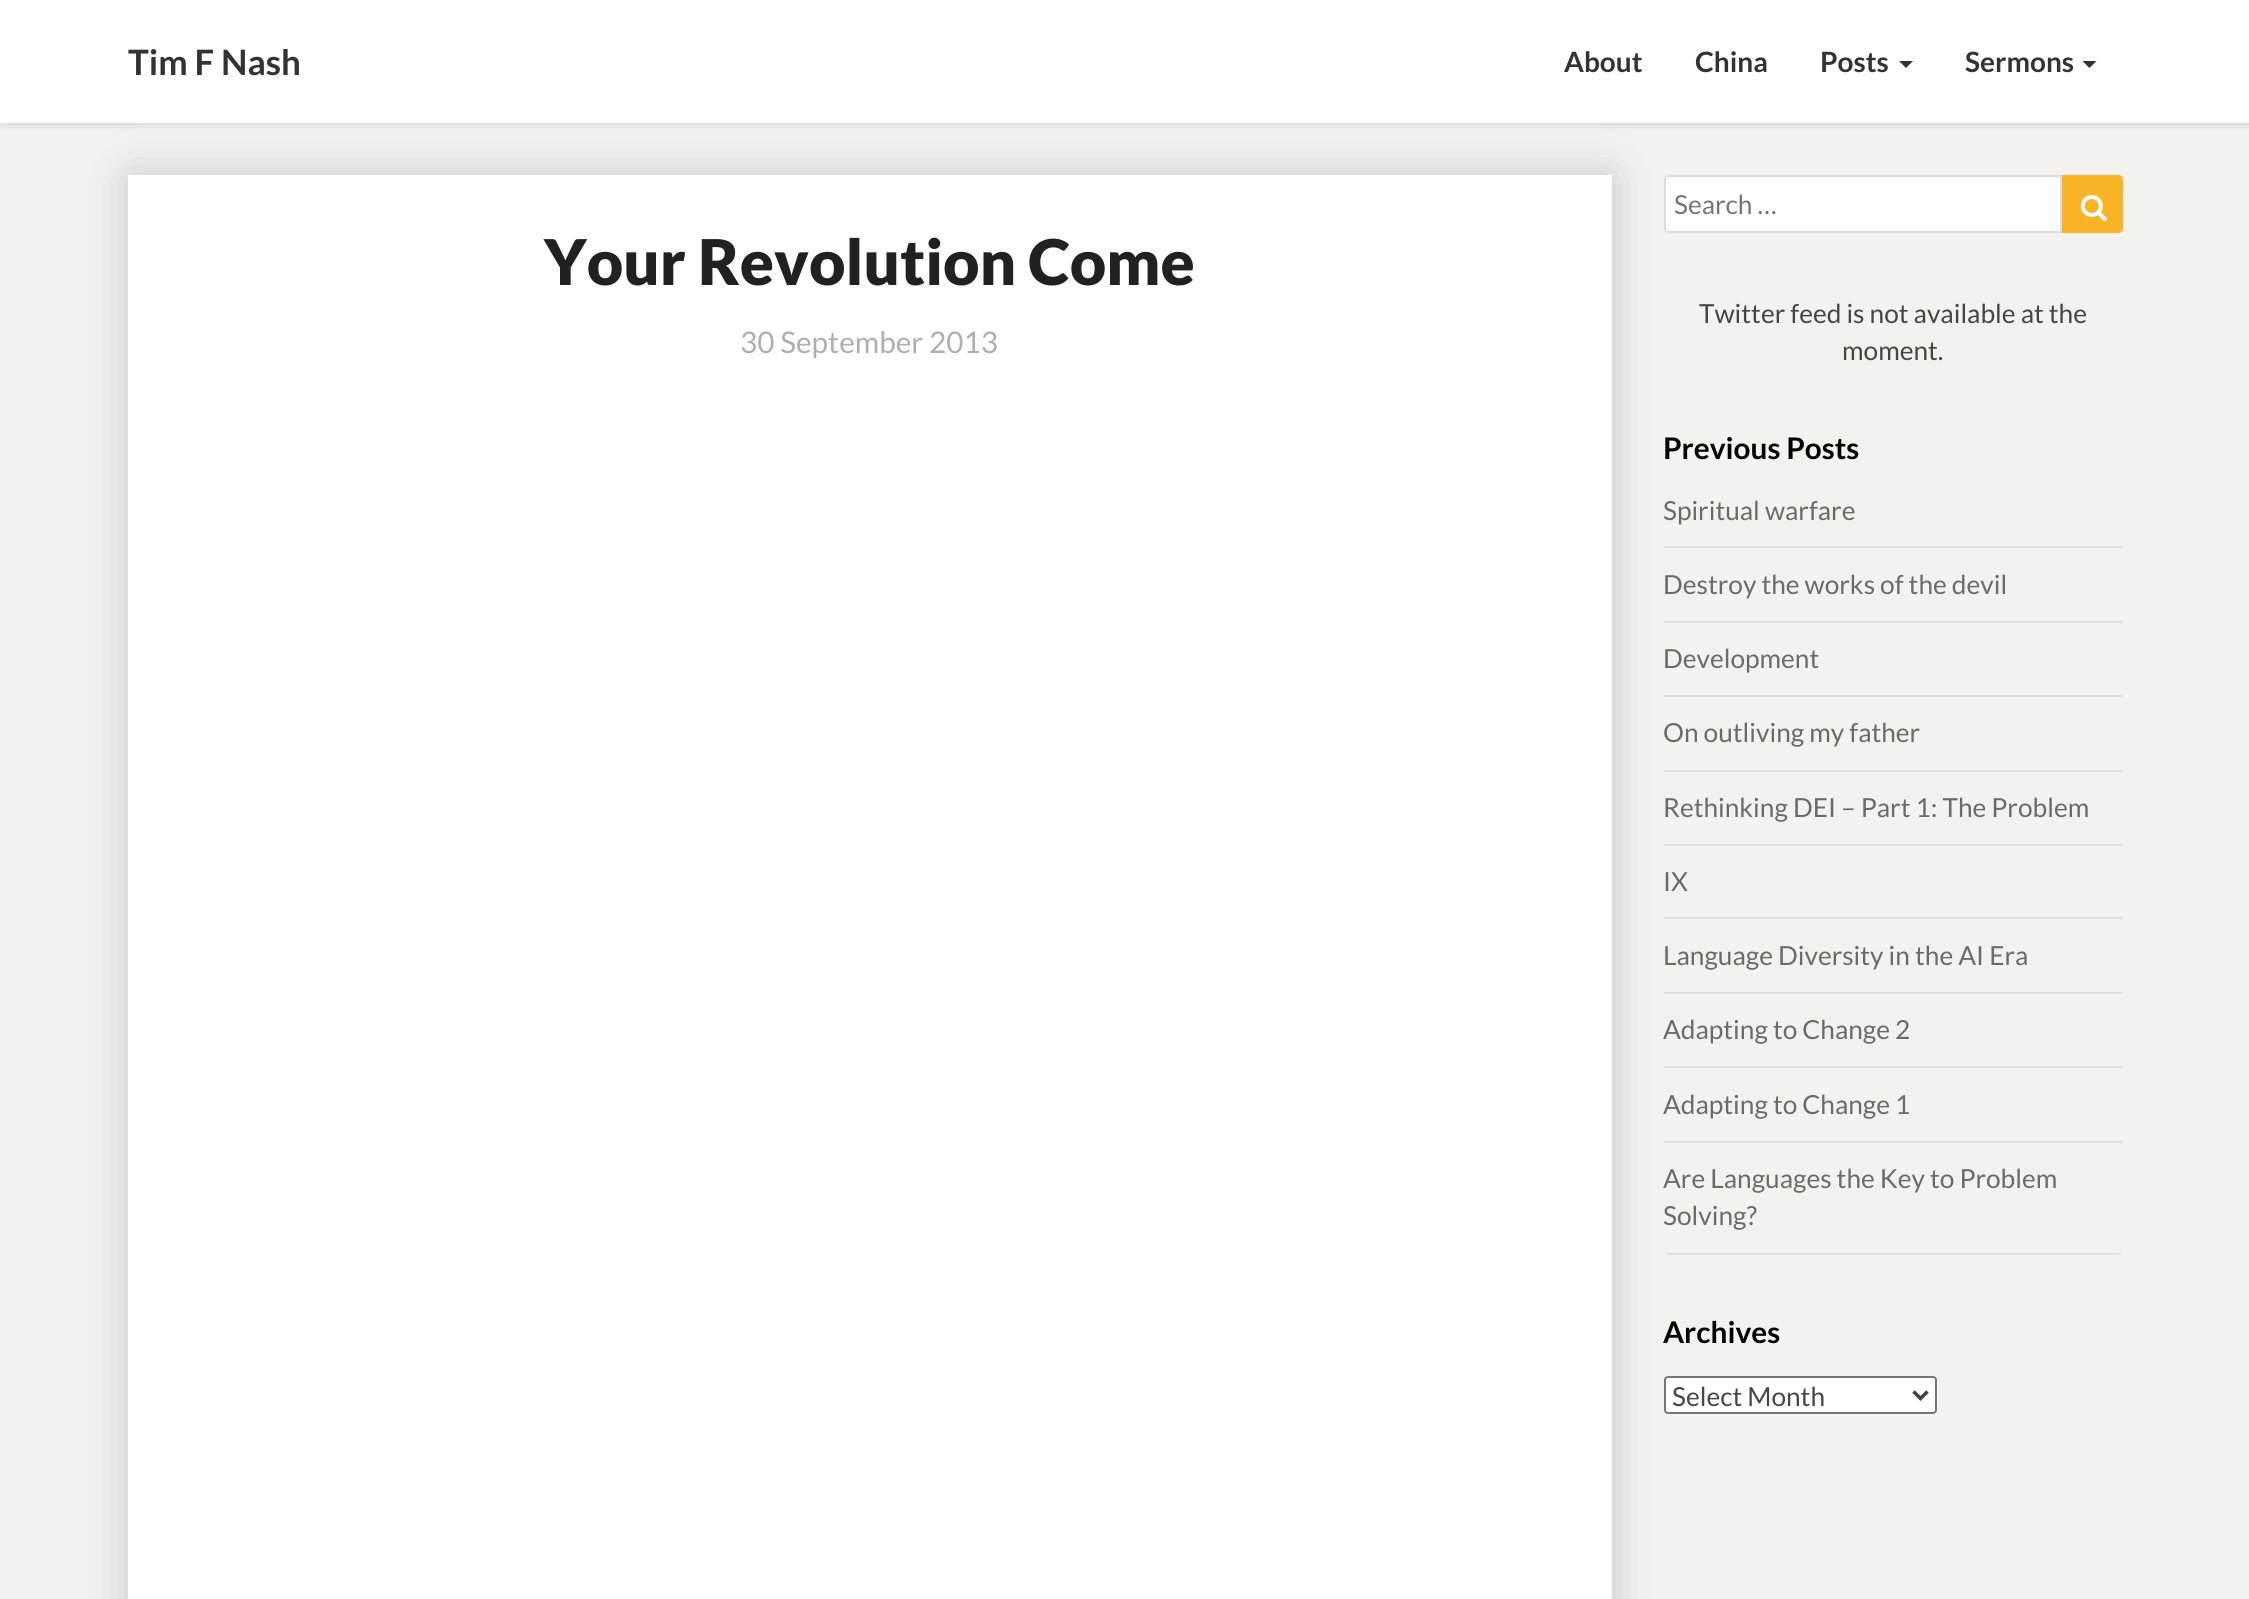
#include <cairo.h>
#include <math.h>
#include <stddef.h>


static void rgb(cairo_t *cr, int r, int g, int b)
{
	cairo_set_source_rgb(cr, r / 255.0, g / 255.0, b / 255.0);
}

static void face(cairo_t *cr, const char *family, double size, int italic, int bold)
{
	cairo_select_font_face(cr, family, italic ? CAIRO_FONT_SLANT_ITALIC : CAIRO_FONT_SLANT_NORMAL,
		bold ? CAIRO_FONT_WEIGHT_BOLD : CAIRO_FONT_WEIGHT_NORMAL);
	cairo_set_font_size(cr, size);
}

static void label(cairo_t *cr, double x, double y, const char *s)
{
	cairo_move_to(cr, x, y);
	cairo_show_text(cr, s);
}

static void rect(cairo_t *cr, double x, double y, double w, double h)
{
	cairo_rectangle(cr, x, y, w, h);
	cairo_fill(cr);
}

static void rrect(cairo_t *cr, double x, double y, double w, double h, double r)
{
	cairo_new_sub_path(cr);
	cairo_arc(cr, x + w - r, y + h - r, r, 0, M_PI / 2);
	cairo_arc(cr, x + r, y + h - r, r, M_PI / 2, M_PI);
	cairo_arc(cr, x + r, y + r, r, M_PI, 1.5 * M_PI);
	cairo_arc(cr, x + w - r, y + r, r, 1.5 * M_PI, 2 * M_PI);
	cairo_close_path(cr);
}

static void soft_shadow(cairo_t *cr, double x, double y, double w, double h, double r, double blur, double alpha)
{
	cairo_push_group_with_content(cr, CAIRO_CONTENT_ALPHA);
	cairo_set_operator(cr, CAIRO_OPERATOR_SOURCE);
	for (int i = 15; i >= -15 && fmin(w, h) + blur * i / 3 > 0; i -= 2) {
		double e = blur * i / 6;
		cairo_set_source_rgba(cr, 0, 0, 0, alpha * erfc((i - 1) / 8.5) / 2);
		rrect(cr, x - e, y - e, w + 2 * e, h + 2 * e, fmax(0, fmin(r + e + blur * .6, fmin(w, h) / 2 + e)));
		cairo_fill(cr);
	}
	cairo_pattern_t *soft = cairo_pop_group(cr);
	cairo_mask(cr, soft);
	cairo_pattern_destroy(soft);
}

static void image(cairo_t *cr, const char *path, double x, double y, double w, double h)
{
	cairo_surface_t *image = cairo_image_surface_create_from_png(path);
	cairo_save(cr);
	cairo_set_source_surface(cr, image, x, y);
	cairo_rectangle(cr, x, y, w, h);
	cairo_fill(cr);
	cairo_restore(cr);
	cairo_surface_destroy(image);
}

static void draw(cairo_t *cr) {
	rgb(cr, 244, 242, 239);
	cairo_paint(cr);
	rgb(cr, 0, 0, 0);
	soft_shadow(cr, 0, 4, 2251, 122, 0, 3.5, 0.1);
	soft_shadow(cr, 128, 175, 1484, 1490, 0, 22, 0.17);
	rgb(cr, 255, 255, 255);
	rect(cr, 0, 0, 2249, 123);
	face(cr, "Lato", 35, 0, 1);
	rgb(cr, 51, 51, 51);
	label(cr, 128, 75, "Tim F Nash");
	face(cr, "Lato", 28, 0, 1);
	label(cr, 1564, 72, "About");
	label(cr, 1695, 72, "China");
	label(cr, 1820, 72, "Posts");
	cairo_new_path(cr);
	cairo_move_to(cr, 1899, 61);
	cairo_line_to(cr, 1913, 61);
	cairo_line_to(cr, 1906, 68);
	cairo_close_path(cr);
	cairo_fill(cr);
	label(cr, 1965, 72, "Sermons");
	cairo_new_path(cr);
	cairo_move_to(cr, 2082.5, 61);
	cairo_line_to(cr, 2096.5, 61);
	cairo_line_to(cr, 2089.5, 68);
	cairo_close_path(cr);
	cairo_fill(cr);
	rgb(cr, 255, 255, 255);
	rect(cr, 128, 175, 1484, 1424);
	face(cr, "Lato Black", 63, 0, 0);
	rgb(cr, 33, 33, 33);
	label(cr, 544, 285, "Your Revolution Come");
	face(cr, "Lato", 29.75, 0, 0);
	rgb(cr, 175, 175, 175);
	label(cr, 740, 353, "30 September 2013");
	rgb(cr, 255, 255, 255);
	cairo_new_path(cr);
	cairo_move_to(cr, 1669, 175);
	cairo_line_to(cr, 2062, 175);
	cairo_line_to(cr, 2062, 233);
	cairo_line_to(cr, 1669, 233);
	cairo_curve_to(cr, 1666, 233, 1664, 231, 1664, 228);
	cairo_line_to(cr, 1664, 180);
	cairo_curve_to(cr, 1664, 177, 1666, 175, 1669, 175);
	cairo_close_path(cr);
	cairo_fill(cr);
	rgb(cr, 221, 221, 221);
	cairo_set_fill_rule(cr, CAIRO_FILL_RULE_EVEN_ODD);
	cairo_new_path(cr);
	cairo_move_to(cr, 1669, 175);
	cairo_curve_to(cr, 1666, 175, 1664, 177, 1664, 180);
	cairo_line_to(cr, 1664, 228);
	cairo_curve_to(cr, 1664, 231, 1666, 233, 1669, 233);
	cairo_line_to(cr, 2062, 233);
	cairo_line_to(cr, 2062, 175);
	cairo_close_path(cr);
	cairo_move_to(cr, 1668, 177);
	cairo_curve_to(cr, 1667, 177, 1666, 178, 1666, 179);
	cairo_line_to(cr, 1666, 229);
	cairo_curve_to(cr, 1666, 230, 1667, 231, 1668, 231);
	cairo_line_to(cr, 2060, 231);
	cairo_line_to(cr, 2060, 177);
	cairo_close_path(cr);
	cairo_fill(cr);
	face(cr, "Lato", 26.25, 0, 0);
	rgb(cr, 117, 117, 117);
	label(cr, 1674, 214, "Search …");
	rgb(cr, 250, 181, 38);
	cairo_new_path(cr);
	cairo_move_to(cr, 2062, 175);
	cairo_line_to(cr, 2118, 175);
	cairo_curve_to(cr, 2121, 175, 2123, 177, 2123, 180);
	cairo_line_to(cr, 2123, 228);
	cairo_curve_to(cr, 2123, 231, 2121, 233, 2118, 233);
	cairo_line_to(cr, 2062, 233);
	cairo_close_path(cr);
	cairo_fill(cr);
	cairo_new_path(cr);
	cairo_move_to(cr, 2062, 175);
	cairo_line_to(cr, 2062, 233);
	cairo_line_to(cr, 2118, 233);
	cairo_curve_to(cr, 2121, 233, 2123, 231, 2123, 228);
	cairo_line_to(cr, 2123, 180);
	cairo_curve_to(cr, 2123, 177, 2121, 175, 2118, 175);
	cairo_close_path(cr);
	cairo_move_to(cr, 2064, 177);
	cairo_line_to(cr, 2064, 231);
	cairo_line_to(cr, 2119, 231);
	cairo_curve_to(cr, 2120, 231, 2121, 230, 2121, 229);
	cairo_line_to(cr, 2121, 179);
	cairo_curve_to(cr, 2121, 178, 2120, 177, 2119, 177);
	cairo_close_path(cr);
	cairo_fill(cr);
	image(cr, "image0.png", 2080, 195, 27, 26);
	rgb(cr, 70, 70, 70);
	label(cr, 1699, 323, "Twitter feed is not available at the");
	label(cr, 1842, 360, "moment.");
	face(cr, "Lato", 29.75, 0, 1);
	rgb(cr, 0, 0, 0);
	label(cr, 1663, 459, "Previous Posts");
	rgb(cr, 224, 223, 220);
	rect(cr, 1664, 546, 459, 2);
	face(cr, "Lato", 26.25, 0, 0);
	rgb(cr, 107, 107, 107);
	label(cr, 1663, 520, "Spiritual warfare");
	rgb(cr, 224, 223, 220);
	rect(cr, 1664, 621, 459, 2);
	rgb(cr, 107, 107, 107);
	label(cr, 1663, 594, "Destroy the works of the devil");
	rgb(cr, 224, 223, 220);
	rect(cr, 1664, 695, 459, 2);
	rgb(cr, 107, 107, 107);
	label(cr, 1663, 668, "Development");
	rgb(cr, 224, 223, 220);
	rect(cr, 1664, 770, 459, 2);
	rgb(cr, 107, 107, 107);
	label(cr, 1663, 742, "On outliving my father");
	rgb(cr, 224, 223, 220);
	rect(cr, 1664, 844, 459, 2);
	rgb(cr, 107, 107, 107);
	label(cr, 1663, 817, "Rethinking DEI – Part 1: The Problem");
	rgb(cr, 224, 223, 220);
	rect(cr, 1664, 917, 459, 2);
	rgb(cr, 107, 107, 107);
	label(cr, 1663, 891, "IX");
	rgb(cr, 224, 223, 220);
	rect(cr, 1664, 992, 459, 2);
	rgb(cr, 107, 107, 107);
	label(cr, 1663, 965, "Language Diversity in the AI Era");
	rgb(cr, 224, 223, 220);
	rect(cr, 1664, 1066, 459, 2);
	rgb(cr, 107, 107, 107);
	label(cr, 1663, 1039, "Adapting to Change 2");
	rgb(cr, 224, 223, 220);
	rect(cr, 1664, 1141, 459, 2);
	rgb(cr, 107, 107, 107);
	label(cr, 1663, 1114, "Adapting to Change 1");
	cairo_save(cr);
	cairo_set_fill_rule(cr, CAIRO_FILL_RULE_WINDING);
	rrect(cr, 1664, 431, 459, 824, 5);
	cairo_clip(cr);
	rgb(cr, 224, 223, 220);
	rect(cr, 1664, 1253, 459, 2);
	cairo_restore(cr);
	label(cr, 1663, 1188, "Are Languages the Key to Problem");
	label(cr, 1663, 1225, "Solving?");
	face(cr, "Lato", 29.75, 0, 1);
	rgb(cr, 0, 0, 0);
	label(cr, 1663, 1343, "Archives");
	rgb(cr, 255, 255, 255);
	rrect(cr, 1665, 1377, 271, 36, 3);
	cairo_fill_preserve(cr);
	rgb(cr, 118, 118, 118);
	cairo_stroke(cr);
	cairo_new_path(cr);
	cairo_move_to(cr, 1913.5, 1391.5);
	cairo_line_to(cr, 1920.5, 1398.5);
	cairo_line_to(cr, 1927.5, 1391.5);
	rgb(cr, 66, 66, 66);
	cairo_set_line_width(cr, 3.5);
	cairo_stroke(cr);
	face(cr, "Lato", 26.25, 0, 0);
	rgb(cr, 70, 70, 70);
	label(cr, 1672, 1406, "Select Month");
}

int main(void) {
	cairo_surface_t *surface = cairo_image_surface_create(CAIRO_FORMAT_RGB24, 2249, 1599);
	cairo_t *cr = cairo_create(surface);
	cairo_font_options_t *options = cairo_font_options_create();
	cairo_font_options_set_hint_metrics(options, CAIRO_HINT_METRICS_OFF);
	cairo_font_options_set_hint_style(options, CAIRO_HINT_STYLE_NONE);
	cairo_set_font_options(cr, options);
	cairo_set_miter_limit(cr, 4);
	draw(cr);
	cairo_surface_write_to_png(surface, "render.png");
	cairo_font_options_destroy(options);
	cairo_destroy(cr);
	cairo_surface_destroy(surface);
	return 0;
}
